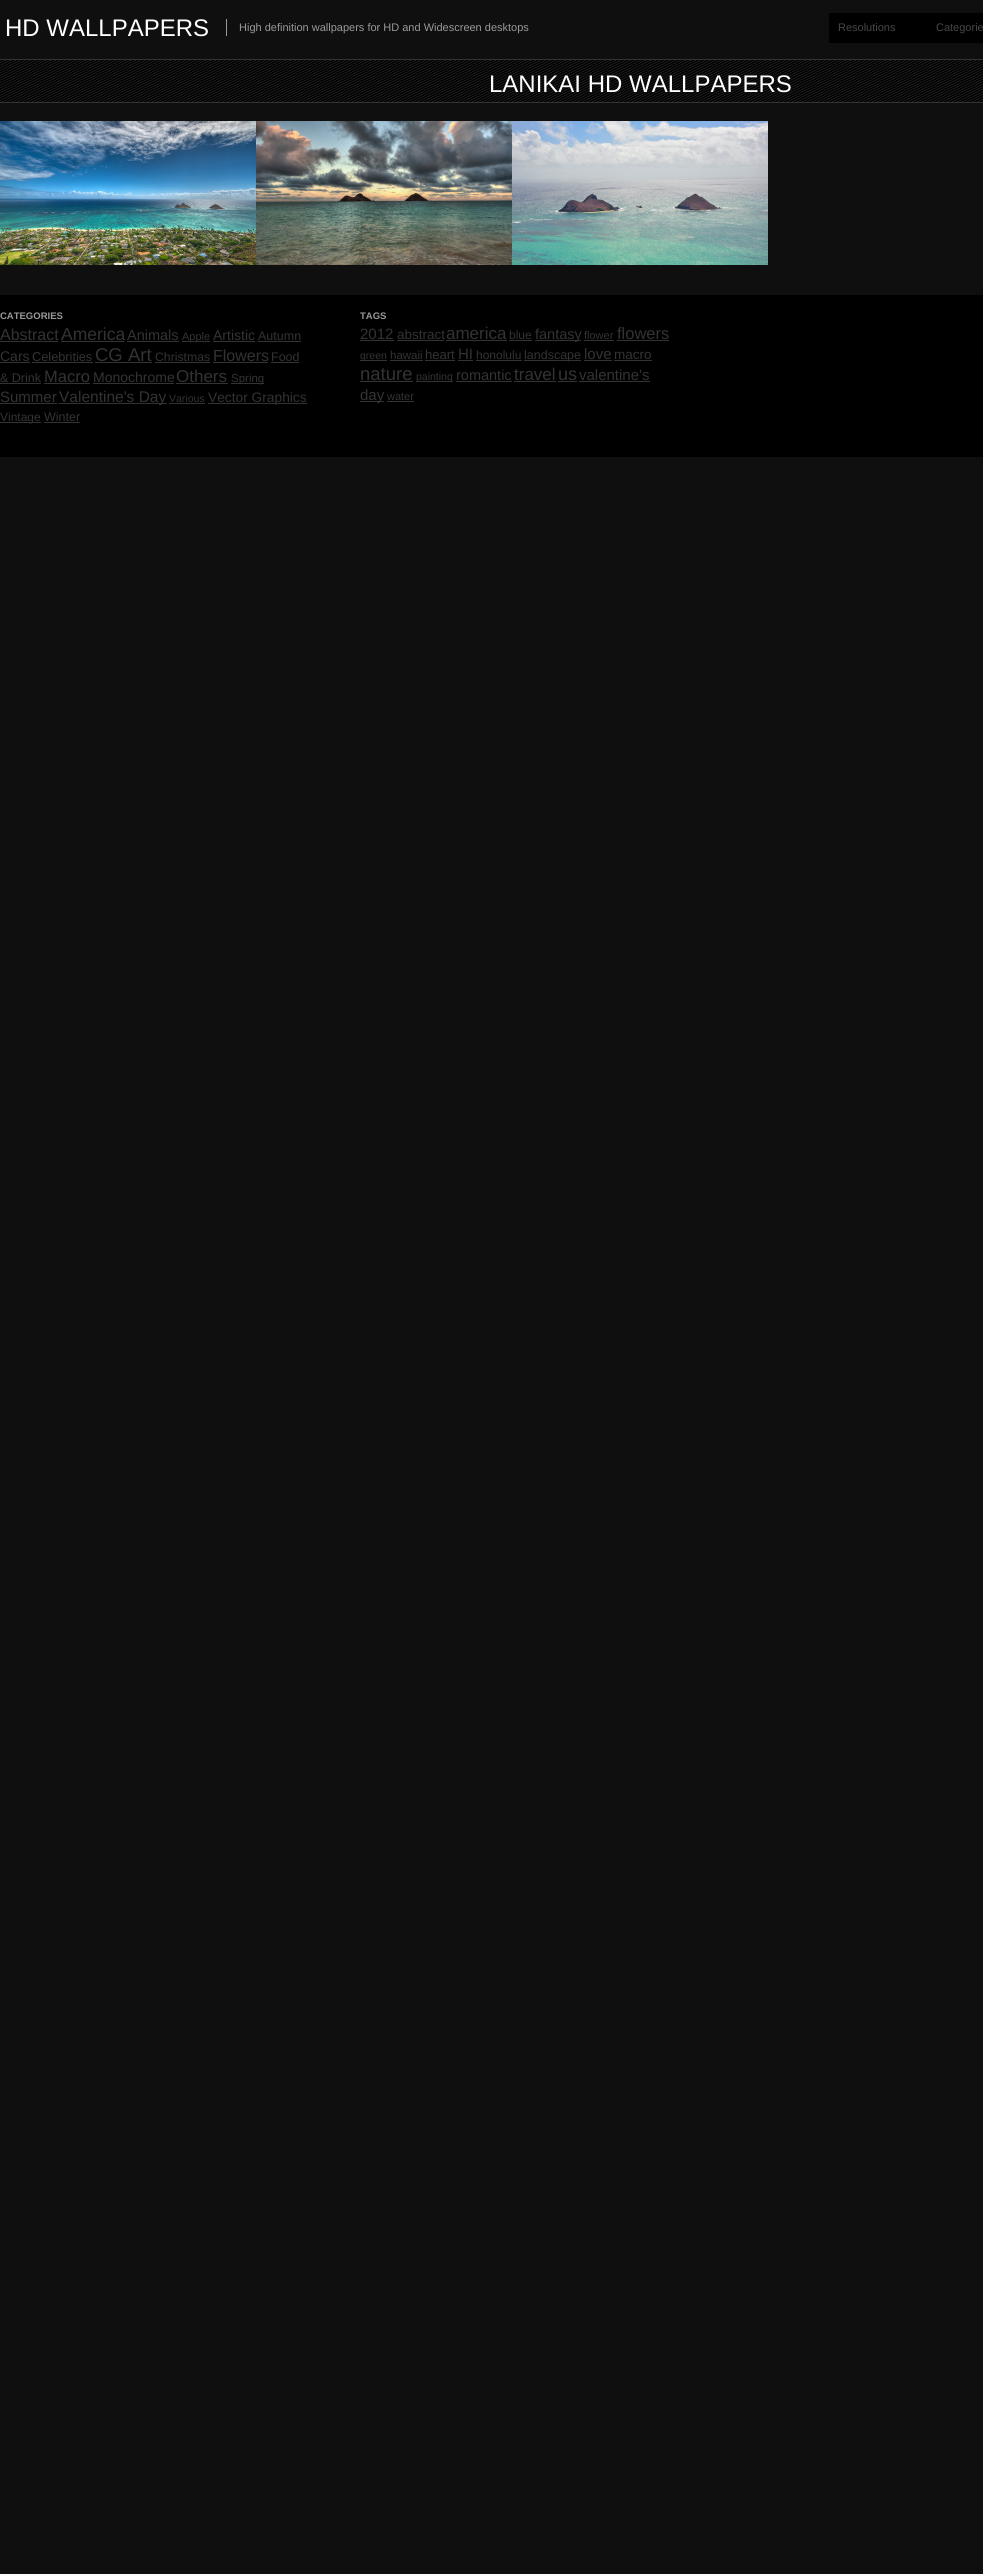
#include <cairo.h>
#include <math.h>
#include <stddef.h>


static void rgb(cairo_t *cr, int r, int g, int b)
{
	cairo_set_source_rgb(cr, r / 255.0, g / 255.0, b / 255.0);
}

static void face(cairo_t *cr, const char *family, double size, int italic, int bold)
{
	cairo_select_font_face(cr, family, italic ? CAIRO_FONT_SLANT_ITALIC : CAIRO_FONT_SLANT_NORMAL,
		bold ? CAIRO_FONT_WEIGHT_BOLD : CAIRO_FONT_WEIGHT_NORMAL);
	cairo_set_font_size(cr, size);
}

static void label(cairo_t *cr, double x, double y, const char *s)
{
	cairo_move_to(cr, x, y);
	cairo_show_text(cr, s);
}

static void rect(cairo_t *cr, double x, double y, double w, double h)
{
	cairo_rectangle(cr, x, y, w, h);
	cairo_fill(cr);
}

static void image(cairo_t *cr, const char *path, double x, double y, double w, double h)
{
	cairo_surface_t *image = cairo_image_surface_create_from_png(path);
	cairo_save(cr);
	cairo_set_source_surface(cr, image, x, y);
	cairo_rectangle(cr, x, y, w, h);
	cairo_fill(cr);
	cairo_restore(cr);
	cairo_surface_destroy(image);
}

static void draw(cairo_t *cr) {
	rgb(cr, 15, 15, 15);
	cairo_paint(cr);
	face(cr, "Liberation Sans", 24, 0, 0);
	rgb(cr, 255, 255, 255);
	label(cr, 5, 36, "HD WALLPAPERS");
	rgb(cr, 153, 153, 153);
	rect(cr, 226, 19, 1, 17);
	face(cr, "Liberation Sans", 11, 0, 0);
	label(cr, 239, 31, "High definition wallpapers for HD and Widescreen desktops");
	rgb(cr, 0, 0, 0);
	rect(cr, 829, 13, 154, 30);
	rgb(cr, 71, 71, 71);
	label(cr, 838, 31, "Resolutions");
	label(cr, 936, 31, "Categorie");
	image(cr, "image0.png", 0, 60, 983, 42);
	rgb(cr, 51, 51, 51);
	rect(cr, 0, 59, 983, 1);
	rect(cr, 0, 102, 983, 1);
	face(cr, "Liberation Sans", 24, 0, 0);
	rgb(cr, 255, 255, 255);
	label(cr, 489, 92, "LANIKAI HD WALLPAPERS");
	image(cr, "image1.png", 0, 121, 256, 144);
	image(cr, "image2.png", 256, 121, 256, 144);
	image(cr, "image3.png", 512, 121, 256, 144);
	rgb(cr, 0, 0, 0);
	rect(cr, 0, 295, 983, 162);
	face(cr, "Liberation Sans", 9.5, 0, 1);
	rgb(cr, 153, 153, 153);
	label(cr, 0, 319, "CATEGORIES");
	face(cr, "Liberation Sans", 16, 0, 0);
	rgb(cr, 51, 51, 51);
	label(cr, 0, 340, "Abstract");
	rect(cr, 0, 341, 58, 1);
	face(cr, "Liberation Sans", 17.5, 0, 0);
	label(cr, 61, 340, "America");
	rect(cr, 61, 341, 63, 1);
	face(cr, "Liberation Sans", 14.5, 0, 0);
	label(cr, 127, 340, "Animals");
	rect(cr, 127, 341, 52, 1);
	rect(cr, 182, 341, 28, 1);
	face(cr, "Liberation Sans", 11, 0, 0);
	label(cr, 182, 340, "Apple");
	face(cr, "Liberation Sans", 14, 0, 0);
	label(cr, 213, 340, "Artistic");
	rect(cr, 213, 341, 42, 1);
	face(cr, "Liberation Sans", 12.5, 0, 0);
	label(cr, 258, 340, "Autumn");
	rect(cr, 258, 341, 43, 1);
	face(cr, "Liberation Sans", 14, 0, 0);
	label(cr, 0, 361, "Cars");
	rect(cr, 0, 362, 30, 1);
	face(cr, "Liberation Sans", 12.75, 0, 0);
	label(cr, 32, 361, "Celebrities");
	rect(cr, 32, 362, 61, 1);
	face(cr, "Liberation Sans", 18.5, 0, 0);
	label(cr, 95, 361, "CG Art");
	rect(cr, 95, 362, 57, 1);
	face(cr, "Liberation Sans", 12.25, 0, 0);
	label(cr, 155, 361, "Christmas");
	rect(cr, 155, 362, 55, 1);
	face(cr, "Liberation Sans", 16, 0, 0);
	label(cr, 213, 361, "Flowers");
	rect(cr, 213, 362, 55, 1);
	face(cr, "Liberation Sans", 12.5, 0, 0);
	label(cr, 271, 361, "Food");
	rect(cr, 271, 362, 28, 1);
	label(cr, 0, 382, "& Drink");
	rect(cr, 0, 383, 41, 1);
	face(cr, "Liberation Sans", 16.5, 0, 0);
	label(cr, 44, 382, "Macro");
	rect(cr, 44, 383, 46, 1);
	face(cr, "Liberation Sans", 14, 0, 0);
	label(cr, 93, 382, "Monochrome");
	rect(cr, 93, 383, 81, 1);
	face(cr, "Liberation Sans", 17, 0, 0);
	label(cr, 176, 382, "Others");
	rect(cr, 176, 383, 52, 1);
	rect(cr, 231, 383, 33, 1);
	face(cr, "Liberation Sans", 11.5, 0, 0);
	label(cr, 231, 382, "Spring");
	face(cr, "Liberation Sans", 15, 0, 0);
	label(cr, 0, 402, "Summer");
	rect(cr, 0, 403, 57, 1);
	rect(cr, 59, 403, 108, 1);
	face(cr, "Liberation Sans", 15.5, 0, 0);
	label(cr, 59, 402, "Valentine's Day");
	face(cr, "Liberation Sans", 10.5, 0, 0);
	label(cr, 169, 402, "Various");
	rect(cr, 169, 403, 36, 1);
	rect(cr, 208, 403, 99, 1);
	face(cr, "Liberation Sans", 13.75, 0, 0);
	label(cr, 208, 402, "Vector Graphics");
	rect(cr, 0, 422, 41, 1);
	face(cr, "Liberation Sans", 12, 0, 0);
	label(cr, 0, 421, "Vintage");
	face(cr, "Liberation Sans", 12.5, 0, 0);
	label(cr, 44, 421, "Winter");
	rect(cr, 44, 422, 36, 1);
	face(cr, "Liberation Sans", 9.5, 0, 1);
	rgb(cr, 153, 153, 153);
	label(cr, 360, 319, "TAGS");
	face(cr, "Liberation Sans", 15, 0, 0);
	rgb(cr, 51, 51, 51);
	label(cr, 360, 339, "2012");
	rect(cr, 360, 340, 34, 1);
	face(cr, "Liberation Sans", 13.5, 0, 0);
	label(cr, 397, 339, "abstract");
	rect(cr, 397, 340, 47, 1);
	face(cr, "Liberation Sans", 17, 0, 0);
	label(cr, 446, 339, "america");
	rect(cr, 446, 340, 61, 1);
	face(cr, "Liberation Sans", 12, 0, 0);
	label(cr, 509, 339, "blue");
	rect(cr, 509, 340, 23, 1);
	rect(cr, 535, 340, 46, 1);
	face(cr, "Liberation Sans", 14.5, 0, 0);
	label(cr, 535, 339, "fantasy");
	face(cr, "Liberation Sans", 11, 0, 0);
	label(cr, 584, 339, "flower");
	rect(cr, 584, 340, 30, 1);
	face(cr, "Liberation Sans", 16.5, 0, 0);
	label(cr, 617, 339, "flowers");
	rect(cr, 617, 340, 52, 1);
	rect(cr, 360, 360, 27, 1);
	face(cr, "Liberation Sans", 10.5, 0, 0);
	label(cr, 360, 359, "green");
	face(cr, "Liberation Sans", 11.5, 0, 0);
	label(cr, 390, 359, "hawaii");
	rect(cr, 390, 360, 33, 1);
	face(cr, "Liberation Sans", 13, 0, 0);
	label(cr, 425, 359, "heart");
	rect(cr, 425, 360, 30, 1);
	face(cr, "Liberation Sans", 15, 0, 0);
	label(cr, 458, 359, "HI");
	rect(cr, 458, 360, 15, 1);
	face(cr, "Liberation Sans", 12, 0, 0);
	label(cr, 476, 359, "honolulu");
	rect(cr, 476, 360, 46, 1);
	rect(cr, 524, 360, 57, 1);
	face(cr, "Liberation Sans", 12.5, 0, 0);
	label(cr, 524, 359, "landscape");
	face(cr, "Liberation Sans", 15, 0, 0);
	label(cr, 584, 359, "love");
	rect(cr, 584, 360, 28, 1);
	face(cr, "Liberation Sans", 13.5, 0, 0);
	label(cr, 614, 359, "macro");
	rect(cr, 614, 360, 38, 1);
	face(cr, "Liberation Sans", 18.5, 0, 0);
	label(cr, 360, 380, "nature");
	rect(cr, 360, 381, 53, 1);
	rect(cr, 416, 381, 37, 1);
	face(cr, "Liberation Sans", 10.5, 0, 0);
	label(cr, 416, 380, "painting");
	face(cr, "Liberation Sans", 14.5, 0, 0);
	label(cr, 456, 380, "romantic");
	rect(cr, 456, 381, 56, 1);
	face(cr, "Liberation Sans", 17, 0, 0);
	label(cr, 514, 380, "travel");
	rect(cr, 514, 381, 42, 1);
	face(cr, "Liberation Sans", 18, 0, 0);
	label(cr, 558, 380, "us");
	rect(cr, 558, 381, 19, 1);
	face(cr, "Liberation Sans", 15, 0, 0);
	label(cr, 579, 380, "valentine's");
	rect(cr, 579, 381, 71, 1);
	rect(cr, 360, 401, 24, 1);
	label(cr, 360, 400, "day");
	face(cr, "Liberation Sans", 11, 0, 0);
	label(cr, 387, 400, "water");
	rect(cr, 387, 401, 27, 1);
}

int main(void) {
	cairo_surface_t *surface = cairo_image_surface_create(CAIRO_FORMAT_RGB24, 983, 2574);
	cairo_t *cr = cairo_create(surface);
	cairo_font_options_t *options = cairo_font_options_create();
	cairo_font_options_set_hint_metrics(options, CAIRO_HINT_METRICS_OFF);
	cairo_font_options_set_hint_style(options, CAIRO_HINT_STYLE_NONE);
	cairo_set_font_options(cr, options);
	cairo_set_miter_limit(cr, 4);
	draw(cr);
	cairo_surface_write_to_png(surface, "render.png");
	cairo_font_options_destroy(options);
	cairo_destroy(cr);
	cairo_surface_destroy(surface);
	return 0;
}
